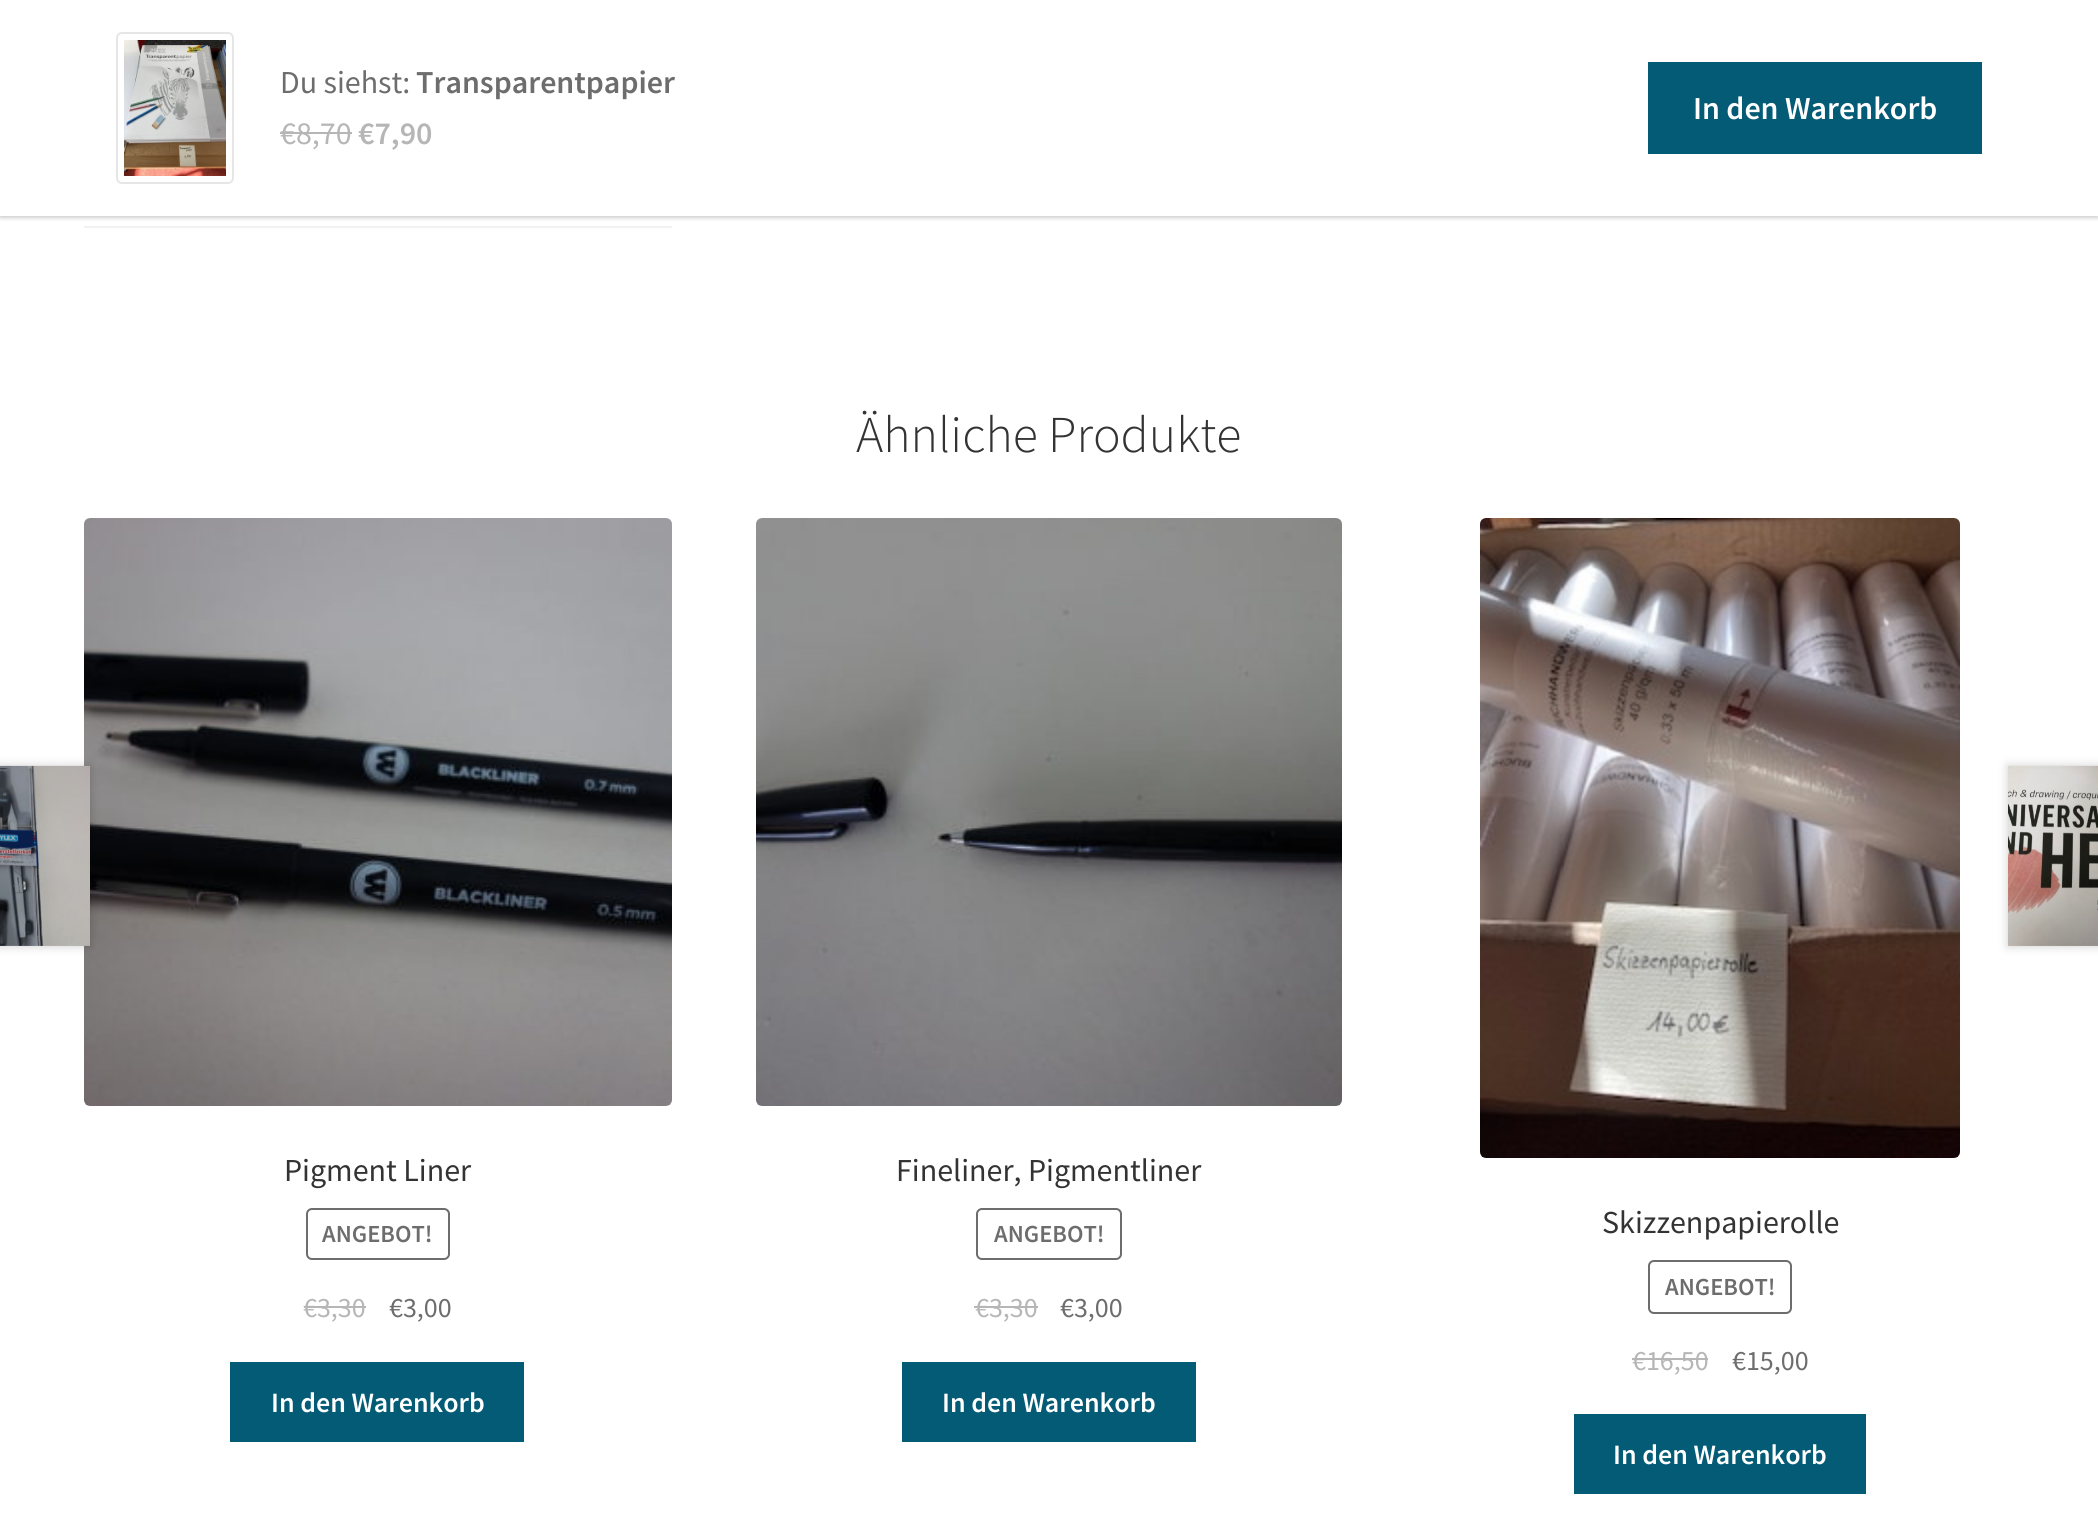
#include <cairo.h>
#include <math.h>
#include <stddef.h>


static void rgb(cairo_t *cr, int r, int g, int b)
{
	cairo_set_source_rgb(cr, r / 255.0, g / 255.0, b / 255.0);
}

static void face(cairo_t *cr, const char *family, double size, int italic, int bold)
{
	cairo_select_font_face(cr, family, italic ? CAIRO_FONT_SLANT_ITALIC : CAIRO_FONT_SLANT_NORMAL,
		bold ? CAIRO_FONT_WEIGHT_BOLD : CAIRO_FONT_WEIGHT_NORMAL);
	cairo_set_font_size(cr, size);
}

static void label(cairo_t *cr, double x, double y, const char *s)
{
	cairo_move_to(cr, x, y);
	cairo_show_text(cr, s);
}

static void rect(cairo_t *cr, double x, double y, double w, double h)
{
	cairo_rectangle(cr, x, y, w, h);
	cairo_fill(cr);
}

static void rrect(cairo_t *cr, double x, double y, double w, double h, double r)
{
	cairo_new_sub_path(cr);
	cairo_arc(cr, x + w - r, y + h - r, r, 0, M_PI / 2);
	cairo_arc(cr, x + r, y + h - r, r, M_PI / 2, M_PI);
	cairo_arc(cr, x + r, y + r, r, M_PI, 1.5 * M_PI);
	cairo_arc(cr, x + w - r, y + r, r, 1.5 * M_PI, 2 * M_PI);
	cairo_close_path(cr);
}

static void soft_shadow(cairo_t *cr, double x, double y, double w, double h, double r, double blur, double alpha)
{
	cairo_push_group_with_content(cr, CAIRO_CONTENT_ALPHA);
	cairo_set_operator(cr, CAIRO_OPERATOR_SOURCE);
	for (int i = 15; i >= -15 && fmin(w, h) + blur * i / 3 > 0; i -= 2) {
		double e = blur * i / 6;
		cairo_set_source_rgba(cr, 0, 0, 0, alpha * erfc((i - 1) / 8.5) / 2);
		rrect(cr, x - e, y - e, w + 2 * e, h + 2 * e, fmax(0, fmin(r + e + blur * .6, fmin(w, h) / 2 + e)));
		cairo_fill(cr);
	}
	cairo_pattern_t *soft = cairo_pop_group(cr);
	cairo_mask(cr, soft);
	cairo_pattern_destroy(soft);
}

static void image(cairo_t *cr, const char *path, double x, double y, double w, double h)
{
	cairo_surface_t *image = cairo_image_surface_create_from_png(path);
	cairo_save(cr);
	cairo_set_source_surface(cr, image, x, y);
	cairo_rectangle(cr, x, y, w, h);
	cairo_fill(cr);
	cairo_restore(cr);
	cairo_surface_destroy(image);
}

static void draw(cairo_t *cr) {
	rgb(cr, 255, 255, 255);
	cairo_paint(cr);
	rgb(cr, 0, 0, 0);
	soft_shadow(cr, 0, 2, 2098, 216, 0, 2, 0.2);
	rgb(cr, 255, 255, 255);
	rect(cr, 0, 0, 2098, 216);
	rrect(cr, 117, 33, 116, 150, 5);
	rgb(cr, 230, 230, 230);
	cairo_stroke(cr);
	image(cr, "image0.png", 124, 40, 102, 136);
	face(cr, "Source Sans Pro", 32, 0, 0);
	rgb(cr, 109, 109, 109);
	label(cr, 280, 93, "Du siehst:");
	face(cr, "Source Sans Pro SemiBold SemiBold", 32, 0, 0);
	label(cr, 416, 93, "Transparentpapier");
	face(cr, "Source Sans Pro", 32, 0, 0);
	rgb(cr, 182, 182, 182);
	label(cr, 280, 144, "€8,70");
	rect(cr, 280, 132, 72, 2);
	face(cr, "Source Sans Pro SemiBold SemiBold", 32, 0, 0);
	label(cr, 358, 144, "€7,90");
	rgb(cr, 4, 91, 118);
	rect(cr, 1648, 62, 334, 92);
	rgb(cr, 255, 255, 255);
	label(cr, 1693, 119, "In den Warenkorb");
	rgb(cr, 242, 242, 242);
	rect(cr, 84, 226, 588, 2);
	face(cr, "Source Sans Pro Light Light", 51.75, 0, 0);
	rgb(cr, 51, 51, 51);
	label(cr, 856, 452, "Ähnliche Produkte");
	image(cr, "image1.png", 84, 518, 588, 588);
	face(cr, "Source Sans Pro", 32, 0, 0);
	label(cr, 284, 1181, "Pigment Liner");
	rrect(cr, 307, 1209, 142, 50, 5);
	rgb(cr, 109, 109, 109);
	cairo_stroke(cr);
	face(cr, "Source Sans Pro SemiBold SemiBold", 24.5, 0, 0);
	label(cr, 322, 1242, "ANGEBOT!");
	face(cr, "Source Sans Pro", 28, 0, 0);
	rgb(cr, 182, 182, 182);
	label(cr, 303, 1317, "€3,30");
	rect(cr, 304, 1306, 62, 2);
	rgb(cr, 109, 109, 109);
	label(cr, 389, 1317, "€3,00");
	rgb(cr, 4, 91, 118);
	rect(cr, 230, 1362, 294, 80);
	face(cr, "Source Sans Pro SemiBold SemiBold", 28, 0, 0);
	rgb(cr, 255, 255, 255);
	label(cr, 271, 1412, "In den Warenkorb");
	image(cr, "image2.png", 756, 518, 586, 588);
	face(cr, "Source Sans Pro", 32, 0, 0);
	rgb(cr, 51, 51, 51);
	label(cr, 896, 1181, "Fineliner, Pigmentliner");
	rrect(cr, 977, 1209, 144, 50, 5);
	rgb(cr, 109, 109, 109);
	cairo_stroke(cr);
	face(cr, "Source Sans Pro SemiBold SemiBold", 24.5, 0, 0);
	label(cr, 994, 1242, "ANGEBOT!");
	face(cr, "Source Sans Pro", 28, 0, 0);
	rgb(cr, 182, 182, 182);
	label(cr, 975, 1317, "€3,30");
	rect(cr, 974, 1306, 64, 2);
	rgb(cr, 109, 109, 109);
	label(cr, 1060, 1317, "€3,00");
	rgb(cr, 4, 91, 118);
	rect(cr, 902, 1362, 294, 80);
	face(cr, "Source Sans Pro SemiBold SemiBold", 28, 0, 0);
	rgb(cr, 255, 255, 255);
	label(cr, 942, 1412, "In den Warenkorb");
	image(cr, "image3.png", 1480, 518, 480, 640);
	face(cr, "Source Sans Pro", 32, 0, 0);
	rgb(cr, 51, 51, 51);
	label(cr, 1602, 1233, "Skizzenpapierolle");
	rrect(cr, 1649, 1261, 142, 52, 5);
	rgb(cr, 109, 109, 109);
	cairo_stroke(cr);
	face(cr, "Source Sans Pro SemiBold SemiBold", 24.5, 0, 0);
	label(cr, 1665, 1295, "ANGEBOT!");
	face(cr, "Source Sans Pro", 28, 0, 0);
	rgb(cr, 182, 182, 182);
	label(cr, 1632, 1370, "€16,50");
	rect(cr, 1632, 1358, 76, 2);
	rgb(cr, 109, 109, 109);
	label(cr, 1732, 1370, "€15,00");
	rgb(cr, 4, 91, 118);
	rect(cr, 1574, 1414, 292, 80);
	face(cr, "Source Sans Pro SemiBold SemiBold", 28, 0, 0);
	rgb(cr, 255, 255, 255);
	label(cr, 1613, 1464, "In den Warenkorb");
	rgb(cr, 0, 0, 0);
	soft_shadow(cr, -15, 766, 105, 180, 0, 5, 0.2);
	image(cr, "image4.png", 0, 765, 90, 181);
	soft_shadow(cr, 2008, 766, 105, 180, 0, 5, 0.2);
	image(cr, "image5.png", 2008, 765, 90, 181);
}

int main(void) {
	cairo_surface_t *surface = cairo_image_surface_create(CAIRO_FORMAT_RGB24, 2098, 1529);
	cairo_t *cr = cairo_create(surface);
	cairo_font_options_t *options = cairo_font_options_create();
	cairo_font_options_set_hint_metrics(options, CAIRO_HINT_METRICS_OFF);
	cairo_font_options_set_hint_style(options, CAIRO_HINT_STYLE_NONE);
	cairo_set_font_options(cr, options);
	cairo_set_miter_limit(cr, 4);
	draw(cr);
	cairo_surface_write_to_png(surface, "render.png");
	cairo_font_options_destroy(options);
	cairo_destroy(cr);
	cairo_surface_destroy(surface);
	return 0;
}
